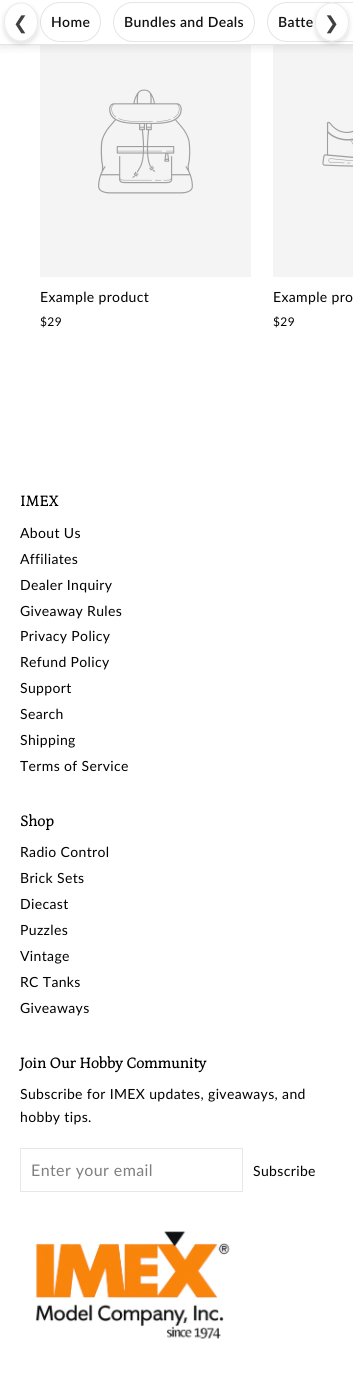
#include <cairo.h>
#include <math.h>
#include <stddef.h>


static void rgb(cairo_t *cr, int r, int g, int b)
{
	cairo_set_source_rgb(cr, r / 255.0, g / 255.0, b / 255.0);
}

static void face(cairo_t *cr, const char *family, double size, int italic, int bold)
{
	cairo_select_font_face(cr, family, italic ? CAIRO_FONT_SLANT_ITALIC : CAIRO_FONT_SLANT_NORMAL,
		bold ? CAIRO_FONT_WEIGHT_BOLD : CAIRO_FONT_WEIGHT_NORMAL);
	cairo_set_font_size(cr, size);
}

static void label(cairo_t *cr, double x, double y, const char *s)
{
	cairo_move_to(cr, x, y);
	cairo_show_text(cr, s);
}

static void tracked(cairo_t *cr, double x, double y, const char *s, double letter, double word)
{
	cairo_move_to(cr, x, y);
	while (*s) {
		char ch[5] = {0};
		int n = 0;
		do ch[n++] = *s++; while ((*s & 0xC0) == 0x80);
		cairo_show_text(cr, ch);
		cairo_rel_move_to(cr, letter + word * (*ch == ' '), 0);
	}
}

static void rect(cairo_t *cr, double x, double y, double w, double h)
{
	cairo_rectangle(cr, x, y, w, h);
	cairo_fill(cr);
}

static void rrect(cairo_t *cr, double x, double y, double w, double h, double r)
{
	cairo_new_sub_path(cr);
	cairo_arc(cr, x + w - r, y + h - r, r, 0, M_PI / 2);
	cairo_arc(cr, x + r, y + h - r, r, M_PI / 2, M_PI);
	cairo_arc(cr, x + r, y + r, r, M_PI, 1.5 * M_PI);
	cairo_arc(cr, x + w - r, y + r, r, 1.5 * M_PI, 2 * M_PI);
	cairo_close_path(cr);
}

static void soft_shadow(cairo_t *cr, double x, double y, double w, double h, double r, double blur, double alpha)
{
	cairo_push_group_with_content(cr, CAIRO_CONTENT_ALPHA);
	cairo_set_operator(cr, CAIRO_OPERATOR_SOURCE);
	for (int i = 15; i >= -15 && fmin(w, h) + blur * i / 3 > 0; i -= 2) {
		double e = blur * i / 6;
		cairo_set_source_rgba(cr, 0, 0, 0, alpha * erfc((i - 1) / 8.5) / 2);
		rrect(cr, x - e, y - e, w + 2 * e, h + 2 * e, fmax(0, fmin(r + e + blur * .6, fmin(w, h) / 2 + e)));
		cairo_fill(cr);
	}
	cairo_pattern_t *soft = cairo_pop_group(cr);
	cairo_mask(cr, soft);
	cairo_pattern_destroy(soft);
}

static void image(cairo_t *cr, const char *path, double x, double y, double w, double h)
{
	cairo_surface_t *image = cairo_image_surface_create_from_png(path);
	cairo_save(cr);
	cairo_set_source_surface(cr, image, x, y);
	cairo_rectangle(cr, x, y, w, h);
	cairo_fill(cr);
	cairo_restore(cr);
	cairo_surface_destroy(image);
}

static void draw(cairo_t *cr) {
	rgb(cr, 255, 255, 255);
	cairo_paint(cr);
	rgb(cr, 244, 244, 244);
	rect(cr, 40, 45, 211, 232);
	rect(cr, 273, 45, 80, 232);
	rgb(cr, 0, 0, 0);
	soft_shadow(cr, 0, 2, 353, 45, 0, 4, 0.1);
	rgb(cr, 255, 255, 255);
	rect(cr, 0, 0, 353, 44);
	rgb(cr, 229, 229, 229);
	rect(cr, 0, 44, 353, 1);
	rrect(cr, 40.5, 2.5, 60, 39, 19.5);
	cairo_set_line_width(cr, 1);
	cairo_stroke(cr);
	rgb(cr, 0, 0, 0);
	soft_shadow(cr, 4, 5, 34, 39, 17, 2.5, 0.12);
	rgb(cr, 255, 255, 255);
	cairo_new_path(cr);
	cairo_move_to(cr, 21, 2.5);
	cairo_curve_to(cr, 30.5, 2.5, 38, 11, 38, 22);
	cairo_curve_to(cr, 38, 33, 30.5, 41.5, 21, 41.5);
	cairo_curve_to(cr, 11.5, 41.5, 4, 33, 4, 22);
	cairo_curve_to(cr, 4, 11, 11.5, 2.5, 21, 2.5);
	cairo_close_path(cr);
	cairo_fill(cr);
	cairo_new_path(cr);
	cairo_move_to(cr, 21, 3);
	cairo_curve_to(cr, 30, 3, 37.5, 11.5, 37.5, 22);
	cairo_curve_to(cr, 37.5, 32.5, 30, 41, 21, 41);
	cairo_curve_to(cr, 12, 41, 4.5, 32.5, 4.5, 22);
	cairo_curve_to(cr, 4.5, 11.5, 12, 3, 21, 3);
	cairo_close_path(cr);
	rgb(cr, 234, 234, 234);
	cairo_stroke(cr);
	face(cr, "DejaVu Sans", 18, 0, 0);
	rgb(cr, 65, 65, 65);
	label(cr, 13, 29, "❮");
	face(cr, "Lato SemiBold", 14, 0, 0);
	rgb(cr, 17, 17, 17);
	tracked(cr, 51, 27, "Home", 0.35, 0);
	rrect(cr, 113.5, 2.5, 141, 39, 19.5);
	rgb(cr, 229, 229, 229);
	cairo_stroke(cr);
	rgb(cr, 17, 17, 17);
	tracked(cr, 124, 27, "Bundles and Deals", 0.35, 0);
	rrect(cr, 267.5, 2.5, 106, 39, 19.5);
	rgb(cr, 229, 229, 229);
	cairo_stroke(cr);
	rgb(cr, 17, 17, 17);
	tracked(cr, 278, 27, "Batte", 0.35, 0);
	cairo_save(cr);
	cairo_set_fill_rule(cr, CAIRO_FILL_RULE_EVEN_ODD);
	cairo_new_path(cr);
	cairo_move_to(cr, 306, 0);
	cairo_line_to(cr, 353, 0);
	cairo_line_to(cr, 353, 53);
	cairo_line_to(cr, 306, 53);
	cairo_close_path(cr);
	cairo_move_to(cr, 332, 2.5);
	cairo_curve_to(cr, 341.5, 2.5, 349, 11.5, 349, 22);
	cairo_curve_to(cr, 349, 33, 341.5, 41.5, 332, 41.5);
	cairo_curve_to(cr, 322.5, 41.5, 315, 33, 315, 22);
	cairo_curve_to(cr, 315, 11.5, 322.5, 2.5, 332, 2.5);
	cairo_close_path(cr);
	cairo_clip(cr);
	rgb(cr, 0, 0, 0);
	soft_shadow(cr, 315, 5, 34, 39, 17, 2.5, 0.12);
	cairo_restore(cr);
	cairo_set_source_rgba(cr, 1, 1, 1, 0.8);
	cairo_new_path(cr);
	cairo_move_to(cr, 332, 2.5);
	cairo_curve_to(cr, 341.5, 2.5, 349, 11, 349, 22);
	cairo_curve_to(cr, 349, 33, 341.5, 41.5, 332, 41.5);
	cairo_curve_to(cr, 322.5, 41.5, 315, 33, 315, 22);
	cairo_curve_to(cr, 315, 11, 322.5, 2.5, 332, 2.5);
	cairo_close_path(cr);
	cairo_fill(cr);
	cairo_new_path(cr);
	cairo_move_to(cr, 332, 3);
	cairo_curve_to(cr, 341, 3, 348.5, 11.5, 348.5, 22);
	cairo_curve_to(cr, 348.5, 32.5, 341, 41, 332, 41);
	cairo_curve_to(cr, 323, 41, 315.5, 32.5, 315.5, 22);
	cairo_curve_to(cr, 315.5, 11.5, 323, 3, 332, 3);
	cairo_close_path(cr);
	cairo_set_source_rgba(cr, 0.898, 0.898, 0.898, 0.8);
	cairo_stroke(cr);
	face(cr, "DejaVu Sans", 18, 0, 0);
	rgb(cr, 65, 65, 65);
	label(cr, 324, 29, "❯");
	image(cr, "image0.png", 98, 89, 95, 105);
	face(cr, "Lato", 14, 0, 0);
	rgb(cr, 0, 0, 0);
	tracked(cr, 40, 302, "Example product", 0.35, 0);
	face(cr, "Lato", 12, 0, 0);
	tracked(cr, 40, 326, "$29", 0.35, 0);
	image(cr, "image1.png", 322, 121, 31, 46);
	face(cr, "Lato", 14, 0, 0);
	tracked(cr, 273, 302, "Example pro", 0.35, 0);
	face(cr, "Lato", 12, 0, 0);
	tracked(cr, 273, 326, "$29", 0.35, 0);
	face(cr, "Petrona", 15.5, 0, 1);
	label(cr, 20, 506, "IMEX");
	face(cr, "Lato", 14, 0, 0);
	tracked(cr, 20, 538, "About Us", 0.35, 0);
	tracked(cr, 20, 564, "Affiliates", 0.35, 0);
	tracked(cr, 20, 590, "Dealer Inquiry", 0.35, 0);
	tracked(cr, 20, 616, "Giveaway Rules", 0.35, 0);
	tracked(cr, 20, 641, "Privacy Policy", 0.35, 0);
	tracked(cr, 20, 667, "Refund Policy", 0.35, 0);
	tracked(cr, 20, 693, "Support", 0.35, 0);
	tracked(cr, 20, 719, "Search", 0.35, 0);
	tracked(cr, 20, 745, "Shipping", 0.35, 0);
	tracked(cr, 20, 771, "Terms of Service", 0.35, 0);
	face(cr, "Petrona", 15.5, 0, 1);
	label(cr, 20, 826, "Shop");
	face(cr, "Lato", 14, 0, 0);
	tracked(cr, 20, 857, "Radio Control", 0.35, 0);
	tracked(cr, 20, 883, "Brick Sets", 0.35, 0);
	tracked(cr, 20, 909, "Diecast", 0.35, 0);
	tracked(cr, 20, 935, "Puzzles", 0.35, 0);
	tracked(cr, 20, 961, "Vintage", 0.35, 0);
	tracked(cr, 20, 987, "RC Tanks", 0.35, 0);
	tracked(cr, 20, 1013, "Giveaways", 0.35, 0);
	face(cr, "Petrona", 15.5, 0, 1);
	label(cr, 20, 1068, "Join Our Hobby Community");
	face(cr, "Lato", 14, 0, 0);
	tracked(cr, 20, 1099, "Subscribe for IMEX updates, giveaways, and", 0.35, 0);
	tracked(cr, 20, 1122, "hobby tips.", 0.35, 0);
	cairo_rectangle(cr, 20.5, 1148.5, 222, 43);
	rgb(cr, 232, 232, 225);
	cairo_stroke(cr);
	face(cr, "Lato", 16, 0, 0);
	rgb(cr, 128, 128, 128);
	tracked(cr, 31, 1176, "Enter your email", 0.4, 0);
	face(cr, "Lato", 14, 0, 0);
	rgb(cr, 0, 0, 0);
	tracked(cr, 253, 1176, "Subscribe", 0.35, 0);
	image(cr, "image2.png", 35, 1231, 195, 108);
}

int main(void) {
	cairo_surface_t *surface = cairo_image_surface_create(CAIRO_FORMAT_RGB24, 353, 1379);
	cairo_t *cr = cairo_create(surface);
	cairo_font_options_t *options = cairo_font_options_create();
	cairo_font_options_set_hint_metrics(options, CAIRO_HINT_METRICS_OFF);
	cairo_font_options_set_hint_style(options, CAIRO_HINT_STYLE_NONE);
	cairo_set_font_options(cr, options);
	cairo_set_miter_limit(cr, 4);
	draw(cr);
	cairo_surface_write_to_png(surface, "render.png");
	cairo_font_options_destroy(options);
	cairo_destroy(cr);
	cairo_surface_destroy(surface);
	return 0;
}
